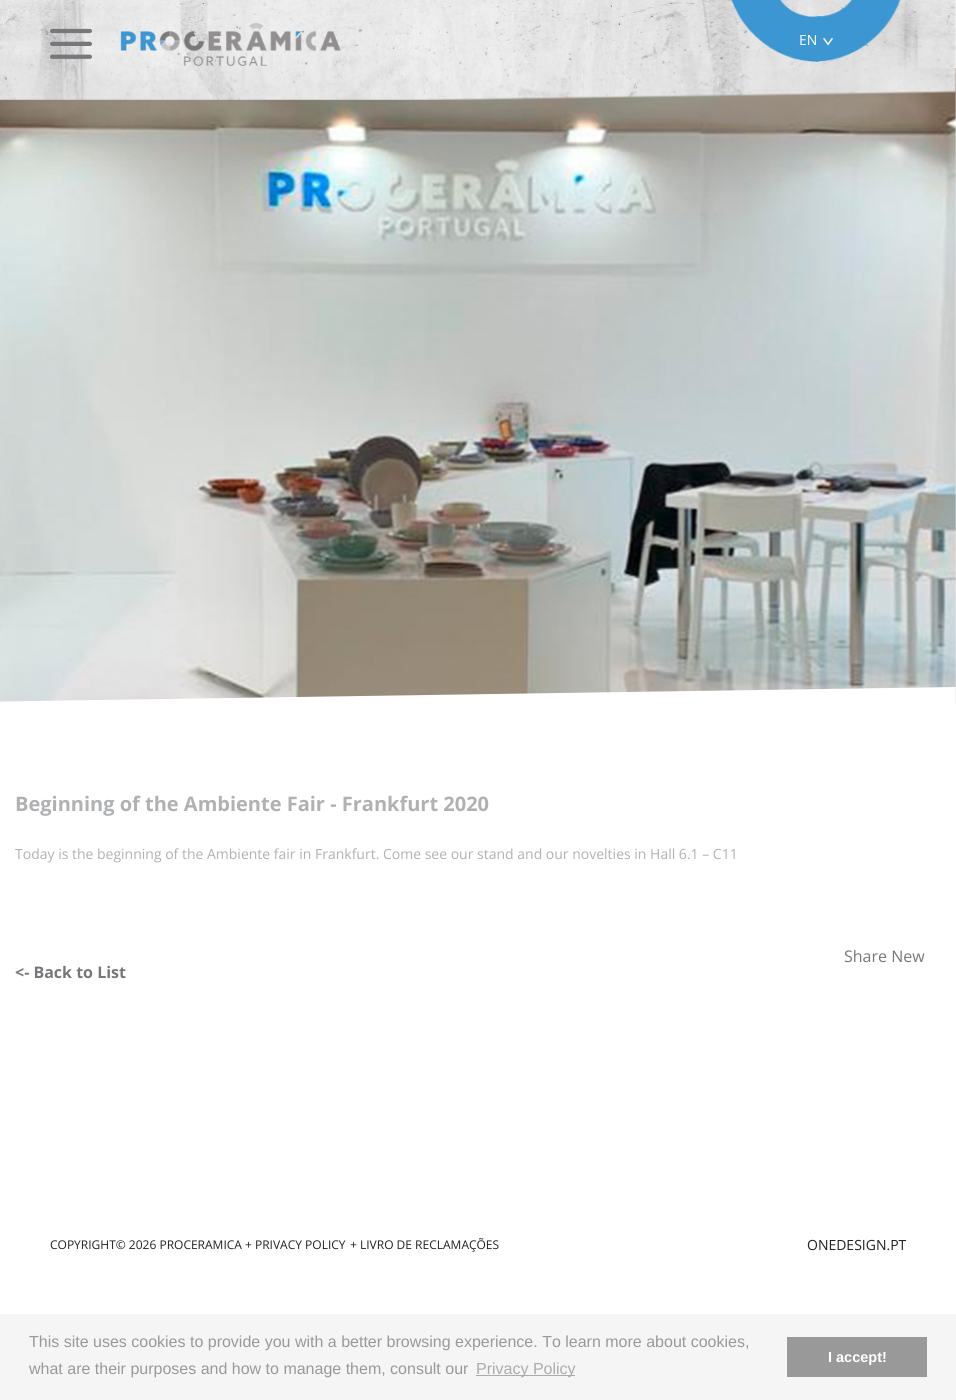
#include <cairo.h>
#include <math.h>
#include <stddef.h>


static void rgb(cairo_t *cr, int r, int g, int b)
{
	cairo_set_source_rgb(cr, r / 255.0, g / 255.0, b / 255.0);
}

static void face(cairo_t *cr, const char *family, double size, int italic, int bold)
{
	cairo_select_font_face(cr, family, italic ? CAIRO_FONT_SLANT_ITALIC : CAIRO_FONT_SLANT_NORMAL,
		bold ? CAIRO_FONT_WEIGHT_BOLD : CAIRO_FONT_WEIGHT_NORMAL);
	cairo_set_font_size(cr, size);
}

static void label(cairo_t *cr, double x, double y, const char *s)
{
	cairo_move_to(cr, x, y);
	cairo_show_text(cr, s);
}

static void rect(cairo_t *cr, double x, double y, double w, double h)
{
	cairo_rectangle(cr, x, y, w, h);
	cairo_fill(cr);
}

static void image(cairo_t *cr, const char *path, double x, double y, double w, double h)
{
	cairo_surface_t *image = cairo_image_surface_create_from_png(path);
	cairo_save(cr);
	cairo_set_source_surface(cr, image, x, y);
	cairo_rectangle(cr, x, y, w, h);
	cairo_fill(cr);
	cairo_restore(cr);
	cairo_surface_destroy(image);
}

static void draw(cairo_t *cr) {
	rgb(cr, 255, 255, 255);
	cairo_paint(cr);
	image(cr, "image5.png", 0, 68, 956, 636);
	image(cr, "image0.png", 0, 0, 956, 100);
	image(cr, "image1.png", 50, 28, 42, 31);
	image(cr, "image2.png", 120, 23, 221, 43);
	image(cr, "image3.png", 731, 0, 170, 62);
	face(cr, "Open Sans", 14, 0, 0);
	rgb(cr, 255, 255, 255);
	label(cr, 799, 45, "EN");
	image(cr, "image4.png", 823, 37, 10, 9);
	image(cr, "image6.png", 0, 687, 956, 17);
	face(cr, "Open Sans", 20, 0, 1);
	rgb(cr, 176, 177, 179);
	label(cr, 15, 811, "Beginning of the Ambiente Fair - Frankfurt 2020");
	face(cr, "Open Sans", 14, 0, 0);
	label(cr, 15, 859, "Today is the beginning of the Ambiente fair in Frankfurt. Come see our stand and our novelties in Hall 6.1 – C11");
	face(cr, "Open Sans", 16, 0, 0);
	rgb(cr, 119, 120, 123);
	label(cr, 844, 962, "Share New");
	face(cr, "Open Sans", 16, 0, 1);
	label(cr, 15, 978, "<- Back to List");
	face(cr, "Open Sans", 12, 0, 0);
	rgb(cr, 34, 34, 32);
	label(cr, 50, 1249, "COPYRIGHT© 2026 PROCERAMICA + PRIVACY POLICY");
	label(cr, 350, 1249, "+ LIVRO DE RECLAMAÇÕES");
	face(cr, "Open Sans", 14, 0, 0);
	label(cr, 807, 1250, "ONEDESIGN.PT");
	rgb(cr, 245, 245, 245);
	rect(cr, 0, 1314, 956, 86);
	face(cr, "Liberation Sans", 16, 0, 0);
	rgb(cr, 153, 153, 153);
	label(cr, 29, 1347, "This site uses cookies to provide you with a better browsing experience. To learn more about cookies,");
	label(cr, 29, 1374, "what are their purposes and how to manage them, consult our");
	rgb(cr, 171, 171, 171);
	rect(cr, 476, 1375, 99, 1);
	label(cr, 476, 1374, "Privacy Policy");
	rgb(cr, 153, 153, 153);
	rect(cr, 787, 1337, 140, 40);
	face(cr, "Liberation Sans", 14.5, 0, 1);
	rgb(cr, 255, 255, 255);
	label(cr, 828, 1362, "I accept!");
}

int main(void) {
	cairo_surface_t *surface = cairo_image_surface_create(CAIRO_FORMAT_RGB24, 956, 1400);
	cairo_t *cr = cairo_create(surface);
	cairo_font_options_t *options = cairo_font_options_create();
	cairo_font_options_set_hint_metrics(options, CAIRO_HINT_METRICS_OFF);
	cairo_font_options_set_hint_style(options, CAIRO_HINT_STYLE_NONE);
	cairo_set_font_options(cr, options);
	cairo_set_miter_limit(cr, 4);
	draw(cr);
	cairo_surface_write_to_png(surface, "render.png");
	cairo_font_options_destroy(options);
	cairo_destroy(cr);
	cairo_surface_destroy(surface);
	return 0;
}
